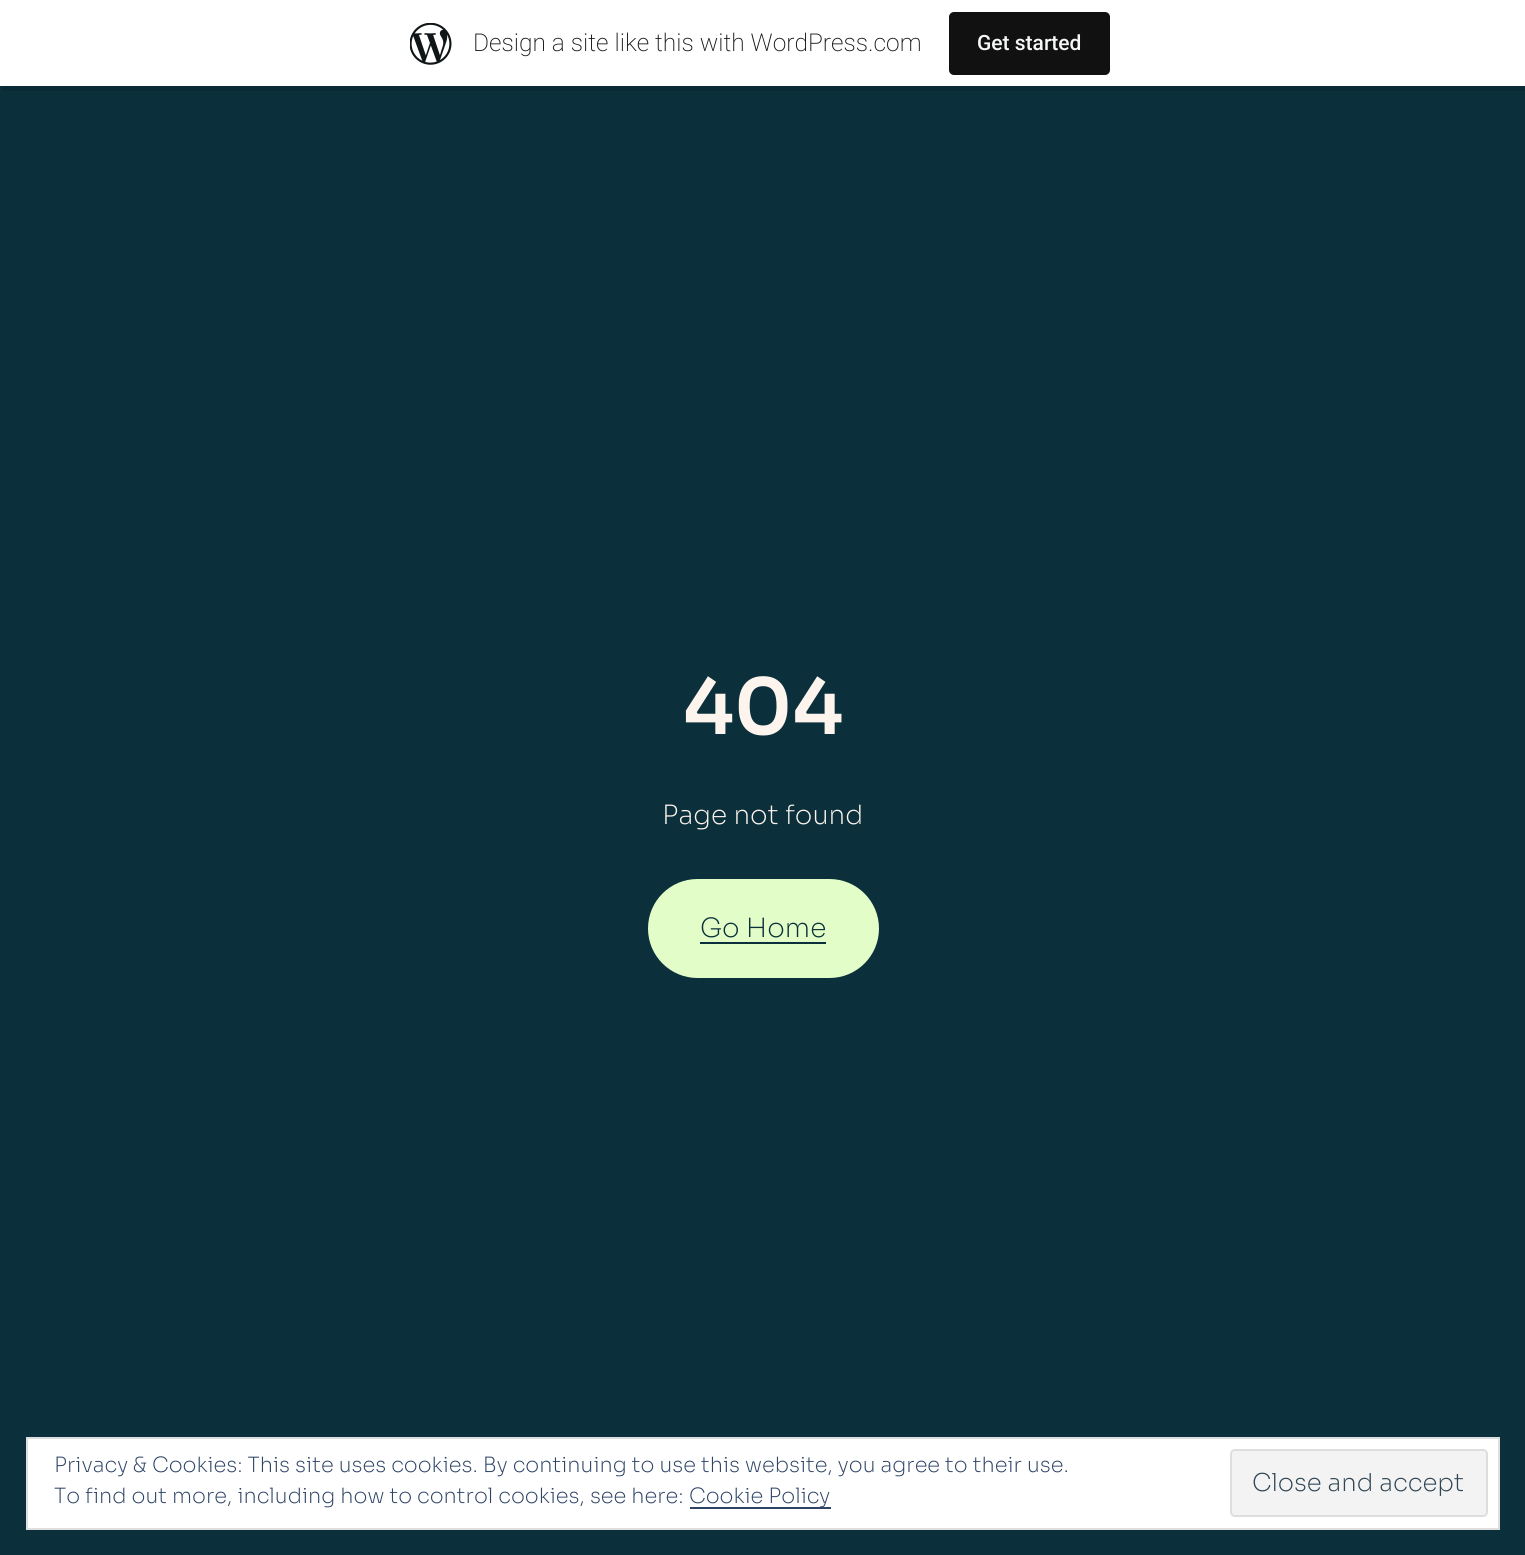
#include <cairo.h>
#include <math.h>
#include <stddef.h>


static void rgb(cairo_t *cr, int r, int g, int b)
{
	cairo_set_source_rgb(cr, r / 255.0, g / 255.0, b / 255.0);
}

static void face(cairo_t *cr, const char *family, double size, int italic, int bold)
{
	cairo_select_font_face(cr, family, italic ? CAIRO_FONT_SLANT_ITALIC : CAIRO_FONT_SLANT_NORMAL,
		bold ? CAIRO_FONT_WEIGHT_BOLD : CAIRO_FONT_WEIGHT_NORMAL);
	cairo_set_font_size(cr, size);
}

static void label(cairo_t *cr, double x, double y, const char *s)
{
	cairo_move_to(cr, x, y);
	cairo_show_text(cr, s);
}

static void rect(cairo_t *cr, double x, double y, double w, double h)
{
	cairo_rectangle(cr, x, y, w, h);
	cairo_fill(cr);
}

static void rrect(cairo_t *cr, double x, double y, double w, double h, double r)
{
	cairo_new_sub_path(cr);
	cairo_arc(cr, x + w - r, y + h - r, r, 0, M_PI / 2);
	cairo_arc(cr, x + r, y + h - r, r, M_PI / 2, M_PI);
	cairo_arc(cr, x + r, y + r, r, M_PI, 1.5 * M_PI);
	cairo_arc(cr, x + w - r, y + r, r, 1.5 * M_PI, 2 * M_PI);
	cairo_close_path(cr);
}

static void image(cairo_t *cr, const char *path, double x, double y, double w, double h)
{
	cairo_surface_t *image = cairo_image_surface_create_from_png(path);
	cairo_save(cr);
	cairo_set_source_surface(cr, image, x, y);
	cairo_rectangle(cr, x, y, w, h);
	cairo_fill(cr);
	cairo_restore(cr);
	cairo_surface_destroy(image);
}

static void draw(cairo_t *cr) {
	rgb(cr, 11, 48, 59);
	cairo_paint(cr);
	rgb(cr, 10, 43, 53);
	cairo_new_path(cr);
	cairo_move_to(cr, 2, 86);
	cairo_line_to(cr, 2, 91);
	cairo_line_to(cr, 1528, 91);
	cairo_line_to(cr, 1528, 5);
	cairo_line_to(cr, 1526, 5);
	cairo_line_to(cr, 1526, 86);
	cairo_close_path(cr);
	cairo_fill(cr);
	rgb(cr, 255, 255, 255);
	rect(cr, 0, 0, 1525, 86);
	image(cr, "image0.png", 410, 23, 42, 42);
	face(cr, "Roboto ExtraLight", 24.5, 0, 0);
	rgb(cr, 23, 23, 23);
	label(cr, 473, 51, "Design a site like this with WordPress.com");
	rgb(cr, 17, 17, 17);
	rrect(cr, 949, 12, 161, 63, 5);
	cairo_fill(cr);
	face(cr, "Roboto Medium", 21, 0, 0);
	rgb(cr, 246, 247, 247);
	label(cr, 977, 50, "Get started");
	face(cr, "Sora SemiBold", 77, 0, 0);
	rgb(cr, 254, 244, 238);
	label(cr, 683, 734, "404");
	face(cr, "Sora ExtraLight", 26.5, 0, 0);
	label(cr, 662, 824, "Page not found");
	rgb(cr, 226, 253, 199);
	rrect(cr, 648, 879, 231, 99, 49.5);
	cairo_fill(cr);
	rgb(cr, 11, 48, 59);
	label(cr, 700, 937, "Go Home");
	rect(cr, 700, 942, 126, 2);
	rgb(cr, 255, 255, 255);
	cairo_rectangle(cr, 27, 1438, 1472, 91);
	cairo_fill_preserve(cr);
	rgb(cr, 222, 222, 222);
	cairo_stroke(cr);
	face(cr, "Sora ExtraLight", 21, 0, 0);
	rgb(cr, 46, 68, 103);
	label(cr, 54, 1472, "Privacy & Cookies: This site uses cookies. By continuing to use this website, you agree to their use.");
	label(cr, 54, 1503, "To find out more, including how to control cookies, see here:");
	rect(cr, 690, 1507, 141, 2);
	label(cr, 689, 1503, "Cookie Policy");
	rgb(cr, 243, 243, 243);
	rrect(cr, 1231, 1450, 256, 66, 4);
	cairo_fill_preserve(cr);
	rgb(cr, 222, 222, 222);
	cairo_stroke(cr);
	face(cr, "Sora ExtraLight", 24.5, 0, 0);
	rgb(cr, 46, 68, 83);
	label(cr, 1252, 1491, "Close and accept");
}

int main(void) {
	cairo_surface_t *surface = cairo_image_surface_create(CAIRO_FORMAT_RGB24, 1525, 1555);
	cairo_t *cr = cairo_create(surface);
	cairo_font_options_t *options = cairo_font_options_create();
	cairo_font_options_set_hint_metrics(options, CAIRO_HINT_METRICS_OFF);
	cairo_font_options_set_hint_style(options, CAIRO_HINT_STYLE_NONE);
	cairo_set_font_options(cr, options);
	cairo_set_miter_limit(cr, 4);
	draw(cr);
	cairo_surface_write_to_png(surface, "render.png");
	cairo_font_options_destroy(options);
	cairo_destroy(cr);
	cairo_surface_destroy(surface);
	return 0;
}
